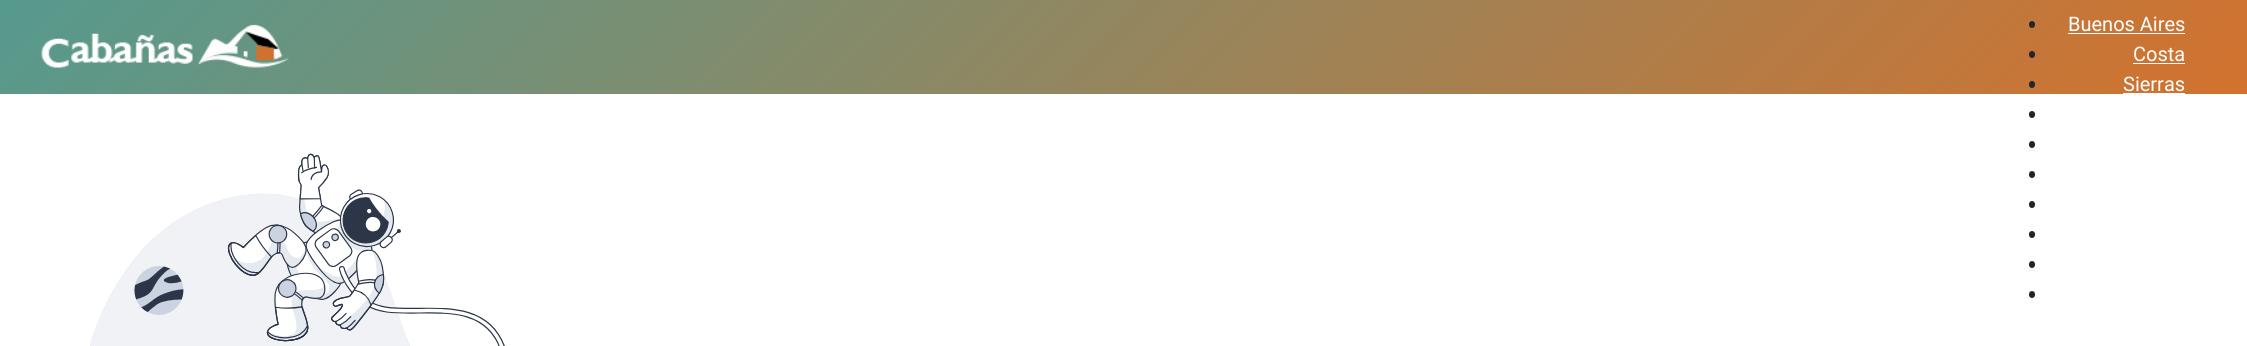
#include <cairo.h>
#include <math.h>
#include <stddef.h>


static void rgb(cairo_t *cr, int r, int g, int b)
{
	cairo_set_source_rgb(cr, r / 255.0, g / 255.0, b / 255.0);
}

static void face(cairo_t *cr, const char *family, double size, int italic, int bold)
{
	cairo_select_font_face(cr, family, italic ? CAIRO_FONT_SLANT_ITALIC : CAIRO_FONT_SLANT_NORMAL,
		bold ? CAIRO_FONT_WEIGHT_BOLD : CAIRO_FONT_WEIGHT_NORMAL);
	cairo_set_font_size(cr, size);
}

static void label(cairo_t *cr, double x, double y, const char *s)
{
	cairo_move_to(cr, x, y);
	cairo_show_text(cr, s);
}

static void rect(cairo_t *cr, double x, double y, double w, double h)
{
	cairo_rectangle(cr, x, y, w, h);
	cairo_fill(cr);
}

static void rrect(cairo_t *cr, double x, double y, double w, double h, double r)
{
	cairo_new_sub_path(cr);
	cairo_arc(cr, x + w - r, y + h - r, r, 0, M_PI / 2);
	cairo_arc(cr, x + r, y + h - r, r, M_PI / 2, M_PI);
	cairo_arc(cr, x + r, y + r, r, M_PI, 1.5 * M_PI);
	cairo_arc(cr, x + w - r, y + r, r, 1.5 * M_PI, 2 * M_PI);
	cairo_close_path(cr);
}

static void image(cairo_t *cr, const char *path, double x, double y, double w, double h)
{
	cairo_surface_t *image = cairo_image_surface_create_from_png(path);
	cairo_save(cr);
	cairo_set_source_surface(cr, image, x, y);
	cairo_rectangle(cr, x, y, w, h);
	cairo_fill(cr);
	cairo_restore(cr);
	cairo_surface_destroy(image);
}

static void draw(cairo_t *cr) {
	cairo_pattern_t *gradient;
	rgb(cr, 255, 255, 255);
	cairo_paint(cr);
	gradient = cairo_pattern_create_linear(538, -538, 1709, 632);
	cairo_pattern_add_color_stop_rgba(gradient, 0, 0.337, 0.604, 0.557, 1);
	cairo_pattern_add_color_stop_rgba(gradient, 1, 0.824, 0.447, 0.18, 1);
	cairo_set_source(cr, gradient);
	cairo_pattern_destroy(gradient);
	rect(cr, 0, 0, 2247, 94);
	image(cr, "image0.png", 41, 24, 248, 44);
	rgb(cr, 34, 38, 42);
	rrect(cr, 2029, 21, 6, 7, 3);
	cairo_fill(cr);
	face(cr, "Roboto", 20, 0, 0);
	rgb(cr, 255, 255, 255);
	label(cr, 2068, 31, "Buenos Aires");
	rect(cr, 2068, 33, 117, 1);
	rgb(cr, 34, 38, 42);
	rrect(cr, 2029, 51, 6, 7, 3);
	cairo_fill(cr);
	rgb(cr, 255, 255, 255);
	label(cr, 2133, 61, "Costa");
	rect(cr, 2133, 63, 52, 1);
	rgb(cr, 34, 38, 42);
	rrect(cr, 2029, 81, 6, 7, 3);
	cairo_fill(cr);
	rgb(cr, 255, 255, 255);
	label(cr, 2123, 91, "Sierras");
	rect(cr, 2123, 93, 62, 1);
	rgb(cr, 34, 38, 42);
	rrect(cr, 2029, 111, 6, 7, 3);
	cairo_fill(cr);
	rrect(cr, 2029, 141, 6, 7, 3);
	cairo_fill(cr);
	rrect(cr, 2029, 171, 6, 7, 3);
	cairo_fill(cr);
	rrect(cr, 2029, 201, 6, 7, 3);
	cairo_fill(cr);
	rrect(cr, 2029, 231, 6, 7, 3);
	cairo_fill(cr);
	rrect(cr, 2029, 261, 6, 7, 3);
	cairo_fill(cr);
	rrect(cr, 2029, 291, 6, 7, 3);
	cairo_fill(cr);
	image(cr, "image1.png", 90, 153, 415, 193);
}

int main(void) {
	cairo_surface_t *surface = cairo_image_surface_create(CAIRO_FORMAT_RGB24, 2247, 346);
	cairo_t *cr = cairo_create(surface);
	cairo_font_options_t *options = cairo_font_options_create();
	cairo_font_options_set_hint_metrics(options, CAIRO_HINT_METRICS_OFF);
	cairo_font_options_set_hint_style(options, CAIRO_HINT_STYLE_NONE);
	cairo_set_font_options(cr, options);
	cairo_set_miter_limit(cr, 4);
	draw(cr);
	cairo_surface_write_to_png(surface, "render.png");
	cairo_font_options_destroy(options);
	cairo_destroy(cr);
	cairo_surface_destroy(surface);
	return 0;
}
